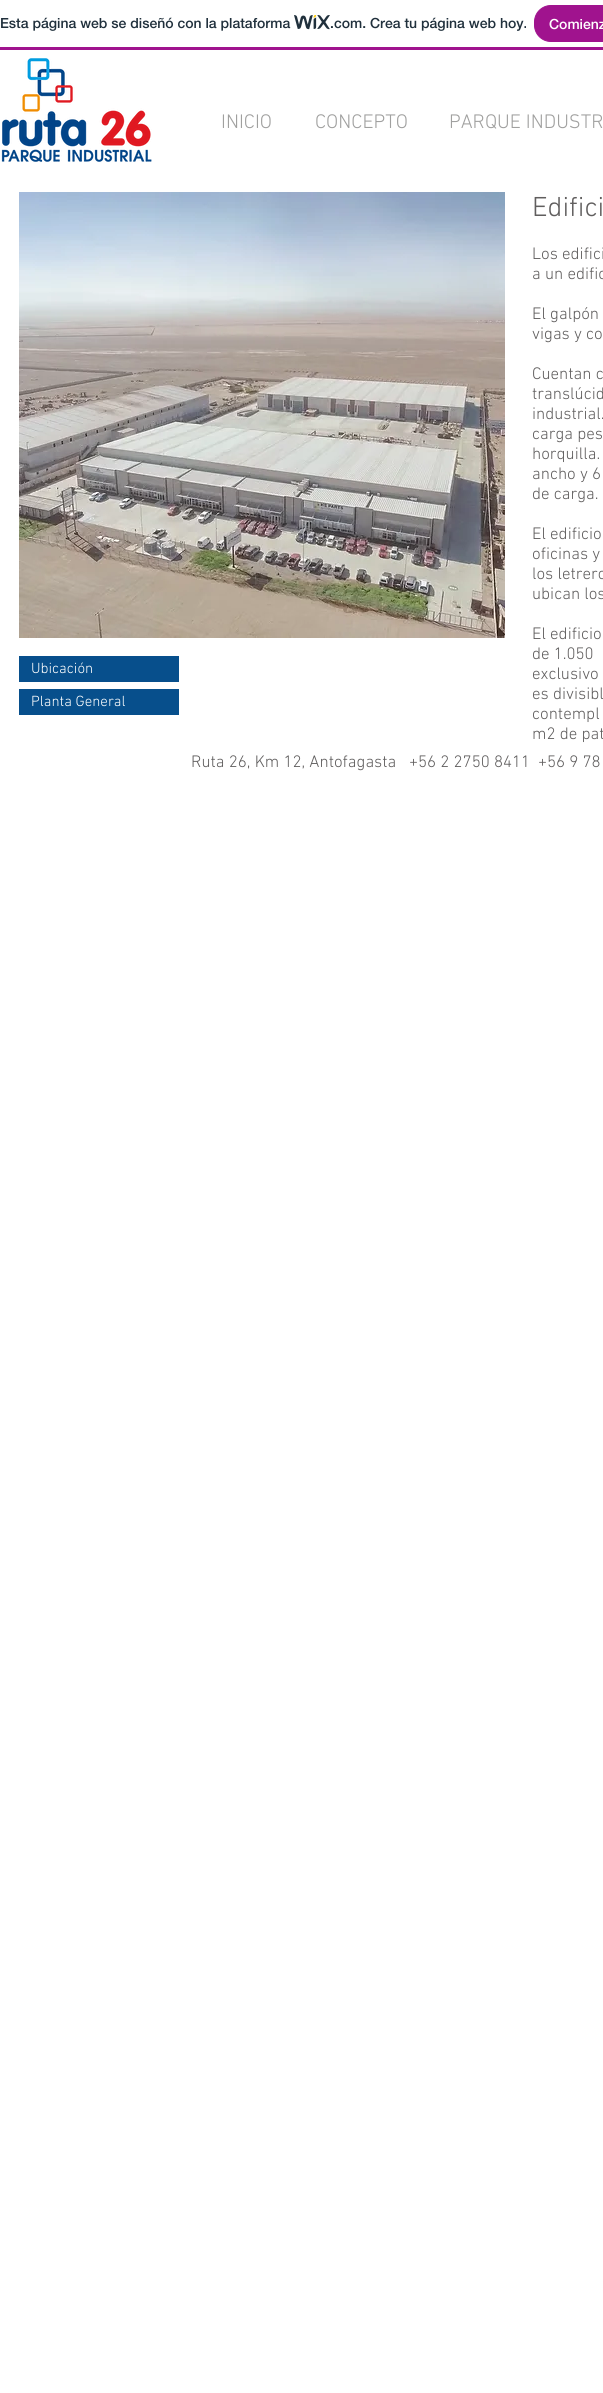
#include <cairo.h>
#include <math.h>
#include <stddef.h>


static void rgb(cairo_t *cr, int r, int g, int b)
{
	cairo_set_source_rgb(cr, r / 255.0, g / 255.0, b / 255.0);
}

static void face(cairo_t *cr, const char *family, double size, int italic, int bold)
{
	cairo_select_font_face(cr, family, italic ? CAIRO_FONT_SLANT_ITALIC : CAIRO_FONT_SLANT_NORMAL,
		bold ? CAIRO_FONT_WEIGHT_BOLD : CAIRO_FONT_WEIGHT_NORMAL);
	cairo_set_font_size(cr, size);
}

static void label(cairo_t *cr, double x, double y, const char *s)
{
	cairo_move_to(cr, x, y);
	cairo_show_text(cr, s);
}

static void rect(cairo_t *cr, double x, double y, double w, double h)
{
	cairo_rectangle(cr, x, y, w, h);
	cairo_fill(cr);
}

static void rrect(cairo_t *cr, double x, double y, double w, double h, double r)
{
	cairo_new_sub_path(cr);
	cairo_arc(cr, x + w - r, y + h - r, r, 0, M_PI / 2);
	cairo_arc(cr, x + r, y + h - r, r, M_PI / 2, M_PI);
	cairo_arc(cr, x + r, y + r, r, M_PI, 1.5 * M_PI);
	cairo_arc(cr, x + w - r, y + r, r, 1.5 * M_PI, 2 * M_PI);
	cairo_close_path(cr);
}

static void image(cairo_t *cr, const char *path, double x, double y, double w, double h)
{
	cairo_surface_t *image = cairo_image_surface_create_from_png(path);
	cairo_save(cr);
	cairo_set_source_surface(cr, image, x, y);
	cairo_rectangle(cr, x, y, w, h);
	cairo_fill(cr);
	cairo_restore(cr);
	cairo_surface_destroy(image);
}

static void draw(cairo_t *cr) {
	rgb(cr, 255, 255, 255);
	cairo_paint(cr);
	rgb(cr, 160, 19, 142);
	rect(cr, 0, 47, 603, 3);
	face(cr, "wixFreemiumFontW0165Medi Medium", 14, 0, 0);
	rgb(cr, 32, 48, 60);
	label(cr, 0, 28, "Esta página web se diseñó con la plataforma");
	image(cr, "image0.png", 294, 15, 36, 15);
	label(cr, 330, 28, ".com. Crea tu página web hoy.");
	rgb(cr, 160, 19, 142);
	rrect(cr, 534.5, 5.5, 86, 36, 16.5);
	cairo_fill_preserve(cr);
	cairo_set_line_width(cr, 1);
	cairo_stroke(cr);
	rgb(cr, 255, 255, 255);
	label(cr, 549, 29, "Comienz");
	image(cr, "image1.png", 1, 58, 151, 104);
	face(cr, "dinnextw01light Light", 20, 0, 0);
	rgb(cr, 160, 160, 159);
	label(cr, 221, 128, "INICIO");
	label(cr, 315, 128, "CONCEPTO");
	label(cr, 449, 128, "PARQUE INDUSTR");
	image(cr, "image2.png", 19, 192, 486, 446);
	face(cr, "dinnextw01light Light", 28, 0, 0);
	rgb(cr, 96, 94, 94);
	label(cr, 532, 216, "Edifici");
	rgb(cr, 7, 79, 140);
	rect(cr, 19, 656, 160, 26);
	face(cr, "dinnextw01light Light", 15, 0, 0);
	rgb(cr, 255, 255, 255);
	label(cr, 31, 673, "Ubicación");
	face(cr, "dinnextw01light Light", 17, 0, 0);
	rgb(cr, 96, 94, 94);
	label(cr, 532, 259, "Los edifici");
	label(cr, 532, 279, "a un edific");
	label(cr, 532, 319, "El galpón");
	label(cr, 532, 339, "vigas y co");
	label(cr, 532, 379, "Cuentan c");
	label(cr, 532, 399, "translúcid");
	label(cr, 532, 419, "industrial.");
	label(cr, 532, 439, "carga pes");
	label(cr, 532, 459, "horquilla.");
	label(cr, 532, 479, "ancho y 6");
	label(cr, 532, 499, "de carga.");
	label(cr, 532, 539, "El edificio");
	label(cr, 532, 559, "oficinas y");
	label(cr, 532, 579, "los letrero");
	label(cr, 532, 599, "ubican los");
	label(cr, 532, 639, "El edificio");
	label(cr, 532, 659, "de 1.050");
	label(cr, 532, 679, "exclusivo");
	label(cr, 532, 699, "es divisibl");
	label(cr, 532, 719, "contempl");
	label(cr, 532, 739, "m2 de pat");
	rgb(cr, 7, 79, 140);
	rect(cr, 19, 689, 160, 26);
	face(cr, "dinnextw01light Light", 15, 0, 0);
	rgb(cr, 255, 255, 255);
	label(cr, 31, 706, "Planta General");
	face(cr, "dinnextw01light Light", 17, 0, 0);
	rgb(cr, 96, 94, 94);
	label(cr, 191, 767, "Ruta 26, Km 12, Antofagasta");
	label(cr, 409, 767, "+56 2 2750 8411");
	label(cr, 538, 767, "+56 9 78");
}

int main(void) {
	cairo_surface_t *surface = cairo_image_surface_create(CAIRO_FORMAT_RGB24, 603, 2393);
	cairo_t *cr = cairo_create(surface);
	cairo_font_options_t *options = cairo_font_options_create();
	cairo_font_options_set_hint_metrics(options, CAIRO_HINT_METRICS_OFF);
	cairo_font_options_set_hint_style(options, CAIRO_HINT_STYLE_NONE);
	cairo_set_font_options(cr, options);
	cairo_set_miter_limit(cr, 4);
	draw(cr);
	cairo_surface_write_to_png(surface, "render.png");
	cairo_font_options_destroy(options);
	cairo_destroy(cr);
	cairo_surface_destroy(surface);
	return 0;
}
